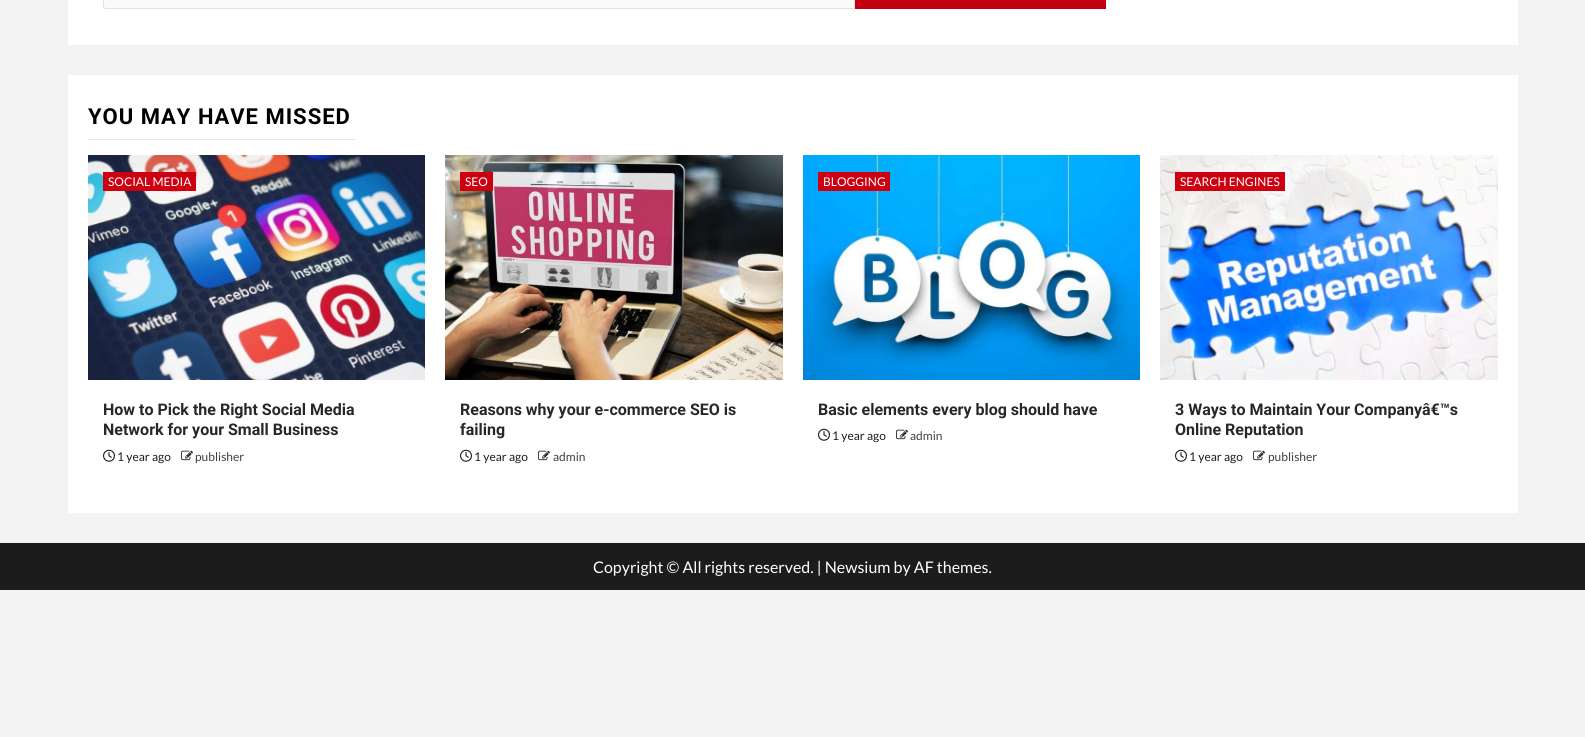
#include <cairo.h>
#include <math.h>
#include <stddef.h>


static void rgb(cairo_t *cr, int r, int g, int b)
{
	cairo_set_source_rgb(cr, r / 255.0, g / 255.0, b / 255.0);
}

static void face(cairo_t *cr, const char *family, double size, int italic, int bold)
{
	cairo_select_font_face(cr, family, italic ? CAIRO_FONT_SLANT_ITALIC : CAIRO_FONT_SLANT_NORMAL,
		bold ? CAIRO_FONT_WEIGHT_BOLD : CAIRO_FONT_WEIGHT_NORMAL);
	cairo_set_font_size(cr, size);
}

static void label(cairo_t *cr, double x, double y, const char *s)
{
	cairo_move_to(cr, x, y);
	cairo_show_text(cr, s);
}

static void tracked(cairo_t *cr, double x, double y, const char *s, double letter, double word)
{
	cairo_move_to(cr, x, y);
	while (*s) {
		char ch[5] = {0};
		int n = 0;
		do ch[n++] = *s++; while ((*s & 0xC0) == 0x80);
		cairo_show_text(cr, ch);
		cairo_rel_move_to(cr, letter + word * (*ch == ' '), 0);
	}
}

static void rect(cairo_t *cr, double x, double y, double w, double h)
{
	cairo_rectangle(cr, x, y, w, h);
	cairo_fill(cr);
}

static void image(cairo_t *cr, const char *path, double x, double y, double w, double h)
{
	cairo_surface_t *image = cairo_image_surface_create_from_png(path);
	cairo_save(cr);
	cairo_set_source_surface(cr, image, x, y);
	cairo_rectangle(cr, x, y, w, h);
	cairo_fill(cr);
	cairo_restore(cr);
	cairo_surface_destroy(image);
}

static void draw(cairo_t *cr) {
	rgb(cr, 243, 243, 243);
	cairo_paint(cr);
	rgb(cr, 255, 255, 255);
	rect(cr, 68, 0, 1450, 45);
	rgb(cr, 250, 250, 250);
	cairo_new_path(cr);
	cairo_move_to(cr, 106, -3.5);
	cairo_line_to(cr, 854.5, -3.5);
	cairo_line_to(cr, 854.5, 8.5);
	cairo_line_to(cr, 106, 8.5);
	cairo_curve_to(cr, 104.5, 8.5, 103.5, 7.5, 103.5, 6);
	cairo_line_to(cr, 103.5, -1);
	cairo_curve_to(cr, 103.5, -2.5, 104.5, -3.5, 106, -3.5);
	cairo_close_path(cr);
	cairo_fill_preserve(cr);
	rgb(cr, 225, 225, 225);
	cairo_set_line_width(cr, 1);
	cairo_stroke(cr);
	rgb(cr, 195, 0, 16);
	rect(cr, 855, 0, 251, 9);
	rgb(cr, 255, 255, 255);
	rect(cr, 68, 75, 1450, 438);
	face(cr, "Roboto", 22, 0, 1);
	rgb(cr, 0, 0, 0);
	tracked(cr, 88, 124, "YOU MAY HAVE MISSED", 1, 0);
	rgb(cr, 230, 230, 230);
	rect(cr, 88, 139, 267, 1);
	image(cr, "image0.png", 88, 155, 337, 225);
	rgb(cr, 204, 0, 16);
	rect(cr, 103, 172, 93, 19);
	face(cr, "Lato", 12, 0, 0);
	rgb(cr, 255, 255, 255);
	label(cr, 108, 186, "SOCIAL MEDIA");
	face(cr, "Roboto", 16, 0, 1);
	rgb(cr, 39, 39, 39);
	label(cr, 103, 415, "How to Pick the Right Social Media");
	label(cr, 103, 435, "Network for your Small Business");
	image(cr, "image1.png", 103, 449, 12, 13);
	face(cr, "Lato", 12, 0, 0);
	rgb(cr, 28, 28, 28);
	label(cr, 117, 461, "1 year ago");
	image(cr, "image2.png", 181, 450, 12, 11);
	rgb(cr, 64, 64, 64);
	label(cr, 195, 461, "publisher");
	image(cr, "image3.png", 445, 155, 338, 225);
	rgb(cr, 204, 0, 16);
	rect(cr, 460, 172, 33, 19);
	rgb(cr, 255, 255, 255);
	label(cr, 465, 186, "SEO");
	face(cr, "Roboto", 16, 0, 1);
	rgb(cr, 39, 39, 39);
	label(cr, 460, 415, "Reasons why your e-commerce SEO is");
	label(cr, 460, 435, "failing");
	image(cr, "image1.png", 460, 449, 12, 13);
	face(cr, "Lato", 12, 0, 0);
	rgb(cr, 28, 28, 28);
	label(cr, 474, 461, "1 year ago");
	image(cr, "image2.png", 538, 450, 12, 11);
	rgb(cr, 64, 64, 64);
	label(cr, 553, 461, "admin");
	image(cr, "image4.png", 803, 155, 337, 225);
	rgb(cr, 204, 0, 16);
	rect(cr, 818, 172, 72, 19);
	rgb(cr, 255, 255, 255);
	label(cr, 823, 186, "BLOGGING");
	face(cr, "Roboto", 16, 0, 1);
	rgb(cr, 39, 39, 39);
	label(cr, 818, 415, "Basic elements every blog should have");
	image(cr, "image1.png", 818, 428, 12, 13);
	face(cr, "Lato", 12, 0, 0);
	rgb(cr, 28, 28, 28);
	label(cr, 832, 440, "1 year ago");
	image(cr, "image2.png", 896, 429, 12, 11);
	rgb(cr, 64, 64, 64);
	label(cr, 910, 440, "admin");
	image(cr, "image5.png", 1160, 155, 338, 225);
	rgb(cr, 204, 0, 16);
	rect(cr, 1175, 172, 110, 19);
	rgb(cr, 255, 255, 255);
	label(cr, 1180, 186, "SEARCH ENGINES");
	face(cr, "Roboto", 16, 0, 1);
	rgb(cr, 39, 39, 39);
	label(cr, 1175, 415, "3 Ways to Maintain Your Companyâ€™s");
	label(cr, 1175, 435, "Online Reputation");
	image(cr, "image1.png", 1175, 449, 12, 13);
	face(cr, "Lato", 12, 0, 0);
	rgb(cr, 28, 28, 28);
	label(cr, 1189, 461, "1 year ago");
	image(cr, "image2.png", 1253, 450, 12, 11);
	rgb(cr, 64, 64, 64);
	label(cr, 1268, 461, "publisher");
	rgb(cr, 28, 28, 28);
	rect(cr, 0, 543, 1585, 47);
	face(cr, "Lato", 16, 0, 0);
	rgb(cr, 255, 255, 255);
	label(cr, 593, 573, "Copyright © All rights reserved. | Newsium by AF themes.");
}

int main(void) {
	cairo_surface_t *surface = cairo_image_surface_create(CAIRO_FORMAT_RGB24, 1585, 737);
	cairo_t *cr = cairo_create(surface);
	cairo_font_options_t *options = cairo_font_options_create();
	cairo_font_options_set_hint_metrics(options, CAIRO_HINT_METRICS_OFF);
	cairo_font_options_set_hint_style(options, CAIRO_HINT_STYLE_NONE);
	cairo_set_font_options(cr, options);
	cairo_set_miter_limit(cr, 4);
	draw(cr);
	cairo_surface_write_to_png(surface, "render.png");
	cairo_font_options_destroy(options);
	cairo_destroy(cr);
	cairo_surface_destroy(surface);
	return 0;
}
